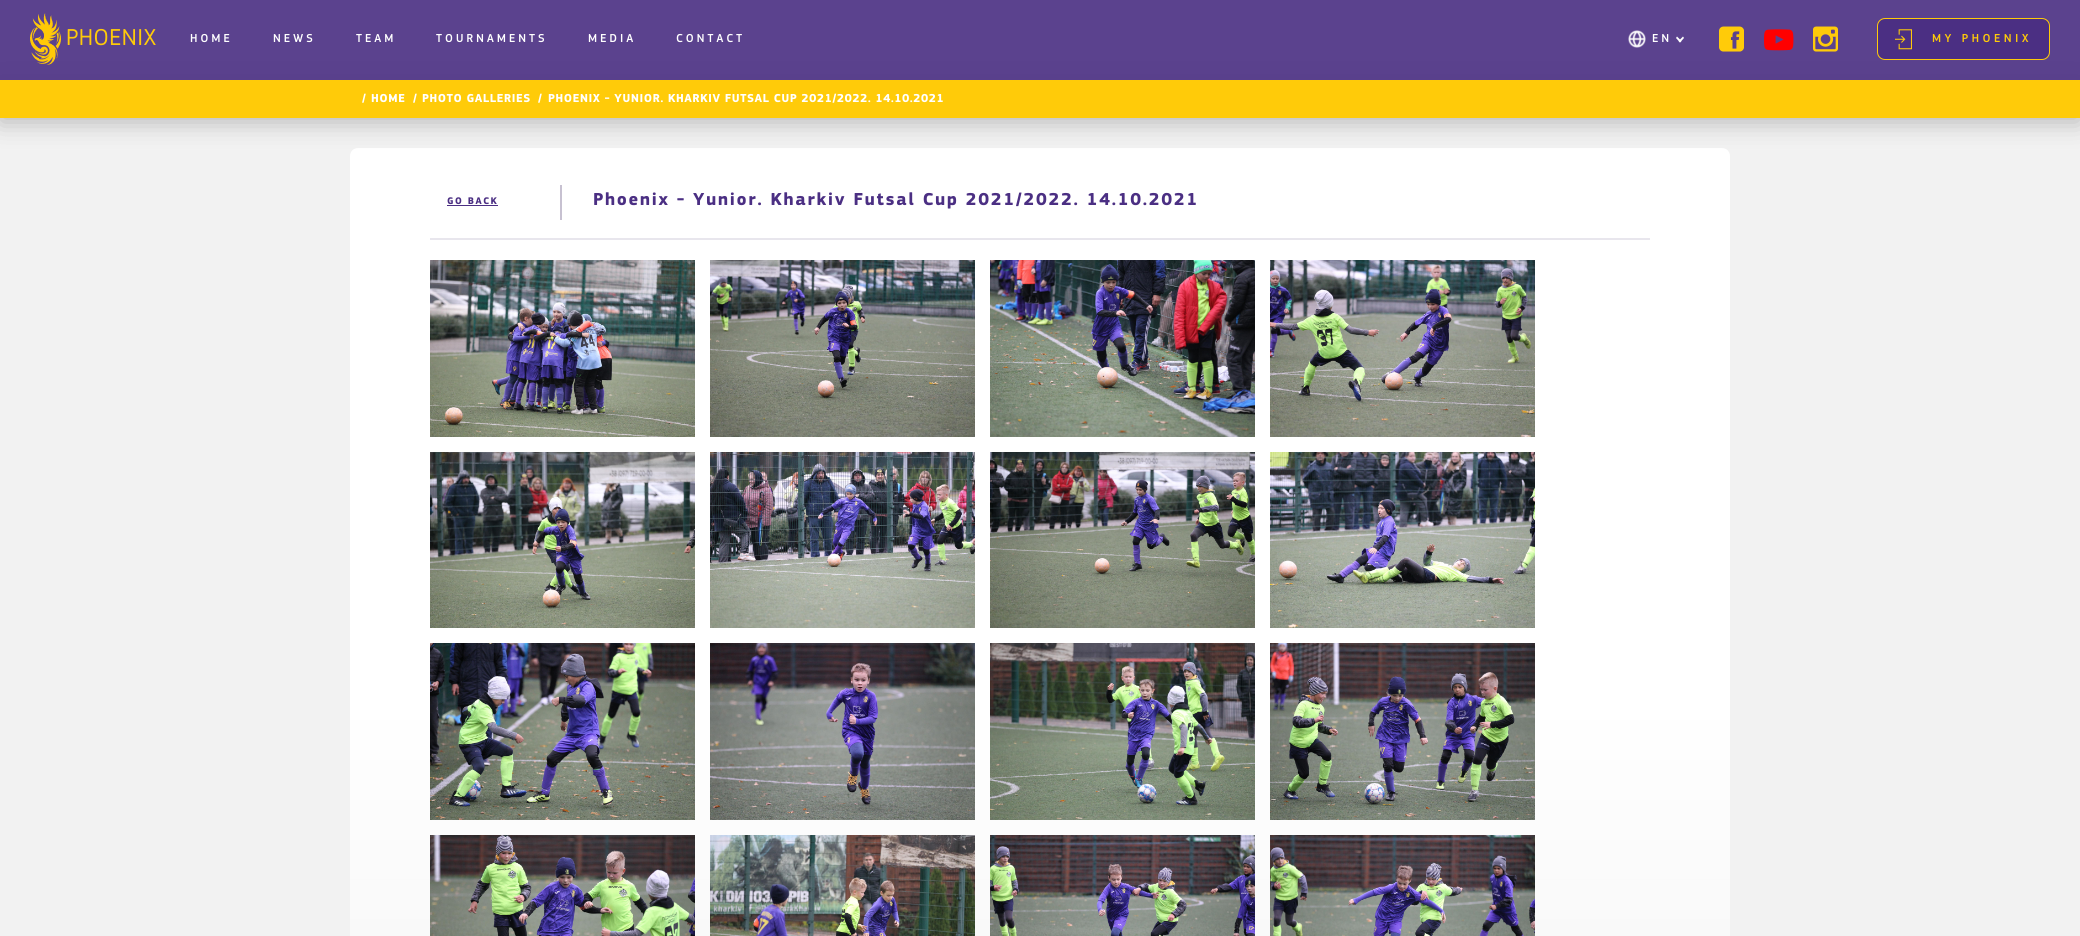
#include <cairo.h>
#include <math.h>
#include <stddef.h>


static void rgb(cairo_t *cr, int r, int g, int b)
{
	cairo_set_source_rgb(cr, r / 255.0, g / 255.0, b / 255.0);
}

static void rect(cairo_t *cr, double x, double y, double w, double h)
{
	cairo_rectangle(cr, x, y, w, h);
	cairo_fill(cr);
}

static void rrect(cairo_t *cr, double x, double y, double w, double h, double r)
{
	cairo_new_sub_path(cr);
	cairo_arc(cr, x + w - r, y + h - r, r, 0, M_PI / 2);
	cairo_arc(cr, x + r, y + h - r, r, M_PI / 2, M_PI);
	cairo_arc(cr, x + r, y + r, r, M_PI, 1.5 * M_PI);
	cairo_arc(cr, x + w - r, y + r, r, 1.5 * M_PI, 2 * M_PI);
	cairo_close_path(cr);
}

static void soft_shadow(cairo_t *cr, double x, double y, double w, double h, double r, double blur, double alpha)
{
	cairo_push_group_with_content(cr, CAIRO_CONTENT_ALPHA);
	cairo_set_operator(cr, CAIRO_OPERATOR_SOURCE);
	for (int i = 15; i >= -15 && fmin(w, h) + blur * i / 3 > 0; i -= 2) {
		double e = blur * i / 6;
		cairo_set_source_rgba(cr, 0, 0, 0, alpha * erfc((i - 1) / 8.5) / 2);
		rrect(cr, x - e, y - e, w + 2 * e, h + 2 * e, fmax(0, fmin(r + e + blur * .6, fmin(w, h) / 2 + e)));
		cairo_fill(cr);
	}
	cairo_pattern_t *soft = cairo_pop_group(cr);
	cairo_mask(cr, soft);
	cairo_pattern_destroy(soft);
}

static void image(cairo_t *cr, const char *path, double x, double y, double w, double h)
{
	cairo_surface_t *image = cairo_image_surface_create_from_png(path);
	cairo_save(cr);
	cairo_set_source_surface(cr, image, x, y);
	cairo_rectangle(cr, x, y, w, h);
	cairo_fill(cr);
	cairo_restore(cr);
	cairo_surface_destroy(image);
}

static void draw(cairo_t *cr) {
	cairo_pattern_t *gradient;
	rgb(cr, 242, 242, 242);
	cairo_paint(cr);
	gradient = cairo_pattern_create_linear(1040, 148, 1040, 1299);
	cairo_pattern_add_color_stop_rgba(gradient, 0, 1, 1, 1, 1);
	cairo_pattern_add_color_stop_rgba(gradient, 0.48, 1, 1, 1, 1);
	cairo_pattern_add_color_stop_rgba(gradient, 1, 0.941, 0.941, 0.941, 1);
	cairo_set_source(cr, gradient);
	cairo_pattern_destroy(gradient);
	rrect(cr, 350, 148, 1380, 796, 8);
	cairo_fill(cr);
	rgb(cr, 0, 0, 0);
	soft_shadow(cr, 0, 84, 2080, 38, 0, 12.5, 0.25);
	cairo_set_source_rgba(cr, 0.294, 0.184, 0.514, 0.9);
	rect(cr, 0, 0, 2080, 80);
	image(cr, "image0.png", 30, 13, 31, 52);
	image(cr, "image1.png", 67, 28, 89, 18);
	image(cr, "image2.png", 190, 33, 40, 10);
	image(cr, "image3.png", 273, 34, 40, 9);
	image(cr, "image4.png", 356, 34, 37, 8);
	image(cr, "image5.png", 436, 34, 108, 9);
	image(cr, "image6.png", 588, 34, 45, 8);
	image(cr, "image7.png", 676, 33, 66, 10);
	image(cr, "image8.png", 1628, 30, 18, 18);
	image(cr, "image9.png", 1652, 34, 17, 8);
	rgb(cr, 255, 255, 255);
	cairo_new_path(cr);
	cairo_move_to(cr, 1683, 36.5);
	cairo_line_to(cr, 1684, 38);
	cairo_line_to(cr, 1680, 42.5);
	cairo_line_to(cr, 1678.5, 41);
	cairo_close_path(cr);
	cairo_fill(cr);
	cairo_new_path(cr);
	cairo_move_to(cr, 1677, 36.5);
	cairo_line_to(cr, 1681.5, 41);
	cairo_line_to(cr, 1680, 42.5);
	cairo_line_to(cr, 1676, 38);
	cairo_close_path(cr);
	cairo_fill(cr);
	image(cr, "image10.png", 1719, 26, 25, 26);
	image(cr, "image11.png", 1764, 29, 30, 22);
	image(cr, "image12.png", 1813, 26, 25, 26);
	rgb(cr, 75, 47, 131);
	rrect(cr, 1877.5, 18.5, 172, 41, 7.5);
	cairo_fill_preserve(cr);
	rgb(cr, 255, 203, 9);
	cairo_set_line_width(cr, 1);
	cairo_stroke(cr);
	image(cr, "image13.png", 1895, 29, 17, 21);
	image(cr, "image14.png", 1932, 33, 97, 10);
	rect(cr, 0, 80, 2080, 38);
	image(cr, "image15.png", 362, 93, 4, 10);
	image(cr, "image16.png", 371, 93, 34, 10);
	image(cr, "image15.png", 413, 93, 4, 10);
	image(cr, "image17.png", 422, 93, 108, 10);
	image(cr, "image15.png", 538, 93, 4, 10);
	image(cr, "image18.png", 548, 93, 395, 10);
	rgb(cr, 232, 230, 237);
	rect(cr, 430, 238, 1220, 2);
	image(cr, "image19.png", 447, 197, 50, 8);
	rgb(cr, 199, 193, 209);
	rect(cr, 560, 185, 2, 35);
	rgb(cr, 75, 47, 131);
	rect(cr, 447, 205, 51, 1);
	image(cr, "image20.png", 594, 192, 602, 17);
	image(cr, "image21.png", 430, 260, 265, 177);
	image(cr, "image22.png", 710, 260, 265, 177);
	image(cr, "image23.png", 990, 260, 265, 177);
	image(cr, "image24.png", 1270, 260, 265, 177);
	image(cr, "image25.png", 430, 452, 265, 176);
	image(cr, "image26.png", 710, 452, 265, 176);
	image(cr, "image27.png", 990, 452, 265, 176);
	image(cr, "image28.png", 1270, 452, 265, 176);
	image(cr, "image29.png", 430, 643, 265, 177);
	image(cr, "image30.png", 710, 643, 265, 177);
	image(cr, "image31.png", 990, 643, 265, 177);
	image(cr, "image32.png", 1270, 643, 265, 177);
	image(cr, "image33.png", 430, 835, 265, 101);
	image(cr, "image34.png", 710, 835, 265, 101);
	image(cr, "image35.png", 990, 835, 265, 101);
	image(cr, "image36.png", 1270, 835, 265, 101);
}

int main(void) {
	cairo_surface_t *surface = cairo_image_surface_create(CAIRO_FORMAT_RGB24, 2080, 936);
	cairo_t *cr = cairo_create(surface);
	cairo_font_options_t *options = cairo_font_options_create();
	cairo_font_options_set_hint_metrics(options, CAIRO_HINT_METRICS_OFF);
	cairo_font_options_set_hint_style(options, CAIRO_HINT_STYLE_NONE);
	cairo_set_font_options(cr, options);
	cairo_set_miter_limit(cr, 4);
	draw(cr);
	cairo_surface_write_to_png(surface, "render.png");
	cairo_font_options_destroy(options);
	cairo_destroy(cr);
	cairo_surface_destroy(surface);
	return 0;
}
